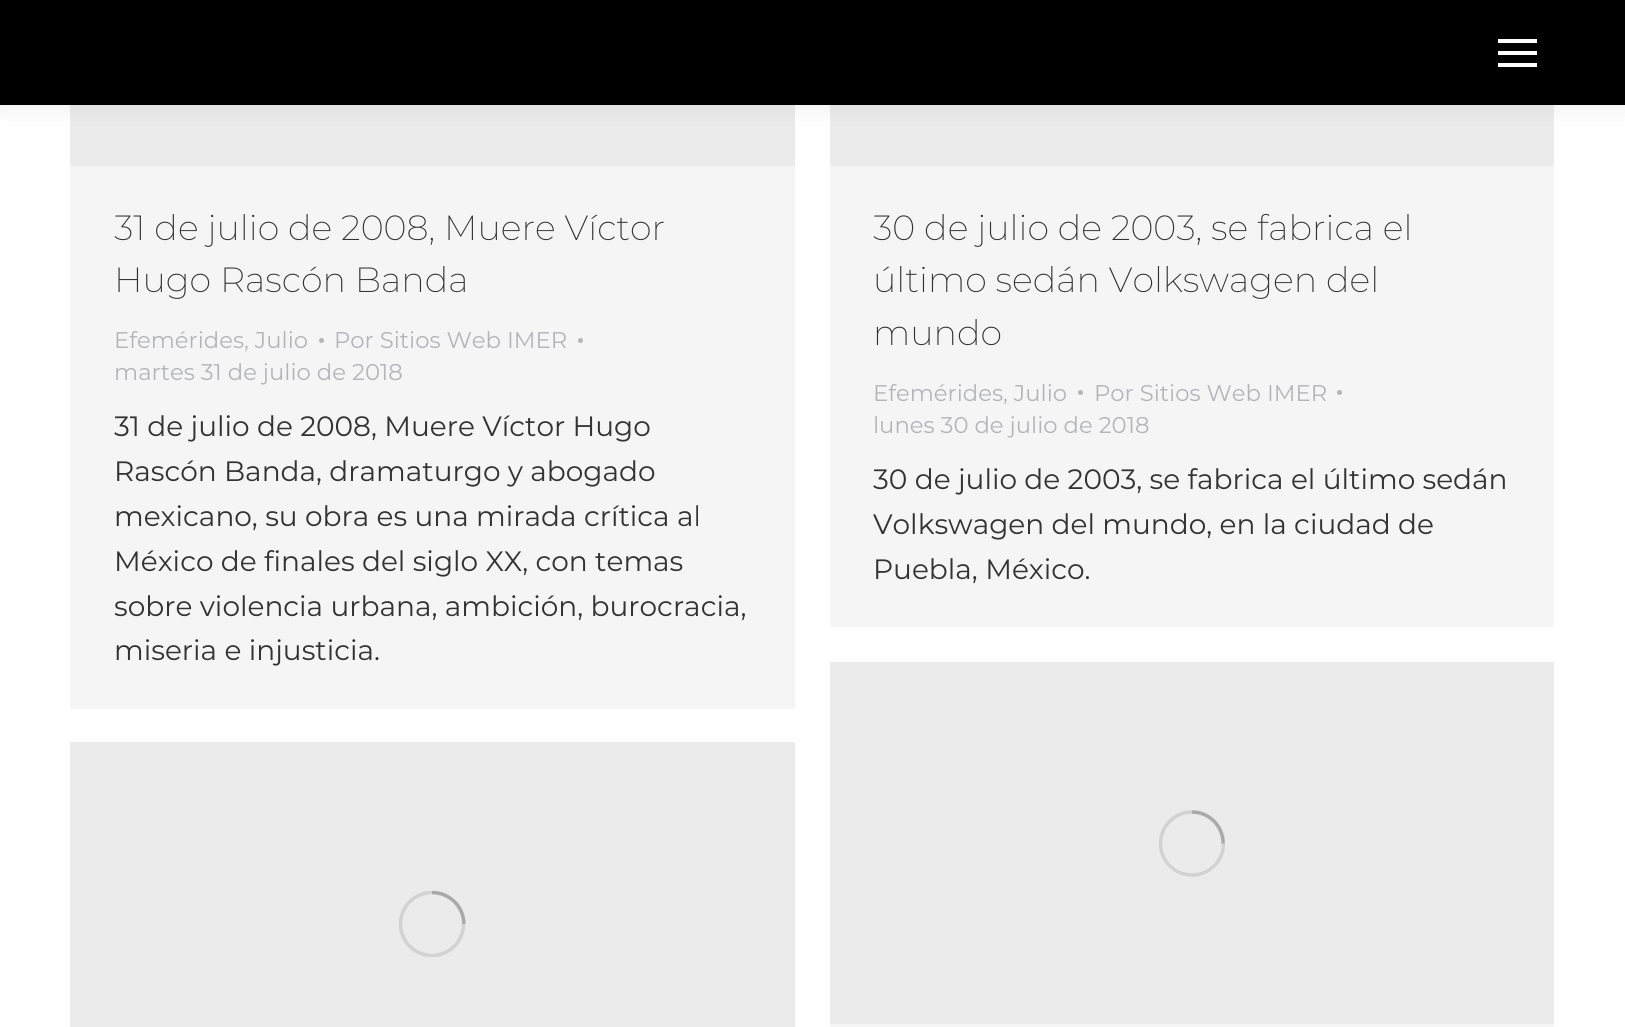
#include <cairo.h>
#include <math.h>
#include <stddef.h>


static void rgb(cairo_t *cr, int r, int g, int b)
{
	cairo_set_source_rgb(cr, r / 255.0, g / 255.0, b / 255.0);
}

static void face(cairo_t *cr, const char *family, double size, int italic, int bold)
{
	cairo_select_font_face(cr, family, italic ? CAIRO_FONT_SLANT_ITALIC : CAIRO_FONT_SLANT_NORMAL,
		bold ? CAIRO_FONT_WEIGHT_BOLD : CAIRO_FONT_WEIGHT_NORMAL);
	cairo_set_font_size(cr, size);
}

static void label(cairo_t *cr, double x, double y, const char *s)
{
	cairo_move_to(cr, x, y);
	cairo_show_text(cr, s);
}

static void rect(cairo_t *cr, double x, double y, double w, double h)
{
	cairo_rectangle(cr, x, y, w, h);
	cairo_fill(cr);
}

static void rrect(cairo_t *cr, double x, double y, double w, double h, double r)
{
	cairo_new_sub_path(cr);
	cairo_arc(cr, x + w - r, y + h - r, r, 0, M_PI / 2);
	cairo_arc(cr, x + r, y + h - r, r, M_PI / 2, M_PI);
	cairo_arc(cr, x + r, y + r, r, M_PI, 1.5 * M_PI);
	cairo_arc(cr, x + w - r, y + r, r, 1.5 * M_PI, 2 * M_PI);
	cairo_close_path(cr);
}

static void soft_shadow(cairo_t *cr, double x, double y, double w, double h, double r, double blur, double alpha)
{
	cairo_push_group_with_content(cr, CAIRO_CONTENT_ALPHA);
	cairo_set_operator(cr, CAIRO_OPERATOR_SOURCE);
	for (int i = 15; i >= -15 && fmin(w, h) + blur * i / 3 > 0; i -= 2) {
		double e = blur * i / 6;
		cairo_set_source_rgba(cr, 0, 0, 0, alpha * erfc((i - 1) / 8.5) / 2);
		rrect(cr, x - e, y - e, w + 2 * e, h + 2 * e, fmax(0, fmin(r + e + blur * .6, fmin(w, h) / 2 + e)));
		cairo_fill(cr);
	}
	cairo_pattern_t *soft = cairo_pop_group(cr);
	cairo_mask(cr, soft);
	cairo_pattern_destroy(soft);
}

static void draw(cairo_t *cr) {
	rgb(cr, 255, 255, 255);
	cairo_paint(cr);
	rgb(cr, 235, 235, 235);
	rect(cr, 70, 105, 725, 61);
	rect(cr, 830, 105, 724, 61);
	rgb(cr, 0, 0, 0);
	soft_shadow(cr, -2, -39, 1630, 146, 0, 13, 0.07);
	rgb(cr, 0, 0, 0);
	rect(cr, 0, 0, 1625, 105);
	rgb(cr, 255, 255, 255);
	rect(cr, 1498, 39, 39, 4);
	rect(cr, 1498, 51, 39, 4);
	rect(cr, 1498, 63, 39, 4);
	rgb(cr, 245, 245, 245);
	rect(cr, 70, 166, 725, 543);
	face(cr, "Montserrat ExtraLight", 35, 0, 0);
	rgb(cr, 51, 51, 51);
	label(cr, 114, 240, "31 de julio de 2008, Muere Víctor");
	label(cr, 114, 292, "Hugo Rascón Banda");
	face(cr, "Montserrat", 22.75, 0, 0);
	rgb(cr, 180, 181, 187);
	label(cr, 114, 348, "Efemérides, Julio");
	cairo_new_path(cr);
	cairo_arc(cr, 321.5, 340.5, 2.5, 0, 2 * M_PI);
	cairo_fill(cr);
	label(cr, 334, 348, "Por Sitios Web IMER");
	cairo_new_path(cr);
	cairo_arc(cr, 580.5, 340.5, 2.5, 0, 2 * M_PI);
	cairo_fill(cr);
	label(cr, 114, 380, "martes 31 de julio de 2018");
	face(cr, "Montserrat", 28, 0, 0);
	rgb(cr, 51, 51, 51);
	label(cr, 114, 436, "31 de julio de 2008, Muere Víctor Hugo");
	label(cr, 114, 481, "Rascón Banda, dramaturgo y abogado");
	label(cr, 114, 526, "mexicano, su obra es una mirada crítica al");
	label(cr, 114, 571, "México de finales del siglo XX, con temas");
	label(cr, 114, 616, "sobre violencia urbana, ambición, burocracia,");
	label(cr, 114, 660, "miseria e injusticia.");
	rgb(cr, 245, 245, 245);
	rect(cr, 830, 166, 724, 461);
	face(cr, "Montserrat ExtraLight", 35, 0, 0);
	rgb(cr, 51, 51, 51);
	label(cr, 873, 240, "30 de julio de 2003, se fabrica el");
	label(cr, 873, 292, "último sedán Volkswagen del");
	label(cr, 873, 345, "mundo");
	face(cr, "Montserrat", 22.75, 0, 0);
	rgb(cr, 180, 181, 187);
	label(cr, 873, 401, "Efemérides, Julio");
	cairo_new_path(cr);
	cairo_arc(cr, 1080.5, 392.5, 2.5, 0, 2 * M_PI);
	cairo_fill(cr);
	label(cr, 1094, 401, "Por Sitios Web IMER");
	cairo_new_path(cr);
	cairo_arc(cr, 1339.5, 392.5, 2.5, 0, 2 * M_PI);
	cairo_fill(cr);
	label(cr, 873, 433, "lunes 30 de julio de 2018");
	face(cr, "Montserrat", 28, 0, 0);
	rgb(cr, 51, 51, 51);
	label(cr, 873, 489, "30 de julio de 2003, se fabrica el último sedán");
	label(cr, 873, 534, "Volkswagen del mundo, en la ciudad de");
	label(cr, 873, 579, "Puebla, México.");
	rgb(cr, 235, 235, 235);
	rect(cr, 70, 742, 725, 285);
	cairo_save(cr);
	cairo_rectangle(cr, 399, 891, 67, 66);
	cairo_clip(cr);
	cairo_arc(cr, 432, 924, 31.5, 0, 2 * M_PI);
	rgb(cr, 210, 210, 210);
	cairo_set_line_width(cr, 3.5);
	cairo_stroke(cr);
	cairo_restore(cr);
	cairo_new_path(cr);
	cairo_move_to(cr, 464, 924);
	cairo_curve_to(cr, 464, 906.5, 449.5, 892.5, 432, 892.5);
	cairo_set_source_rgba(cr, 0.2, 0.2, 0.2, 0.25);
	cairo_set_line_width(cr, 3.5);
	cairo_stroke(cr);
	rgb(cr, 245, 245, 245);
	rect(cr, 830, 1024, 724, 3);
	rgb(cr, 235, 235, 235);
	rect(cr, 830, 662, 724, 362);
	cairo_save(cr);
	cairo_rectangle(cr, 1159, 810, 66, 67);
	cairo_clip(cr);
	cairo_arc(cr, 1192, 843.5, 31.5, 0, 2 * M_PI);
	rgb(cr, 210, 210, 210);
	cairo_stroke(cr);
	cairo_restore(cr);
	cairo_new_path(cr);
	cairo_move_to(cr, 1223, 843.5);
	cairo_curve_to(cr, 1223, 826, 1209, 812, 1192, 812);
	cairo_set_source_rgba(cr, 0.2, 0.2, 0.2, 0.25);
	cairo_stroke(cr);
}

int main(void) {
	cairo_surface_t *surface = cairo_image_surface_create(CAIRO_FORMAT_RGB24, 1625, 1027);
	cairo_t *cr = cairo_create(surface);
	cairo_font_options_t *options = cairo_font_options_create();
	cairo_font_options_set_hint_metrics(options, CAIRO_HINT_METRICS_OFF);
	cairo_font_options_set_hint_style(options, CAIRO_HINT_STYLE_NONE);
	cairo_set_font_options(cr, options);
	cairo_set_miter_limit(cr, 4);
	draw(cr);
	cairo_surface_write_to_png(surface, "render.png");
	cairo_font_options_destroy(options);
	cairo_destroy(cr);
	cairo_surface_destroy(surface);
	return 0;
}
